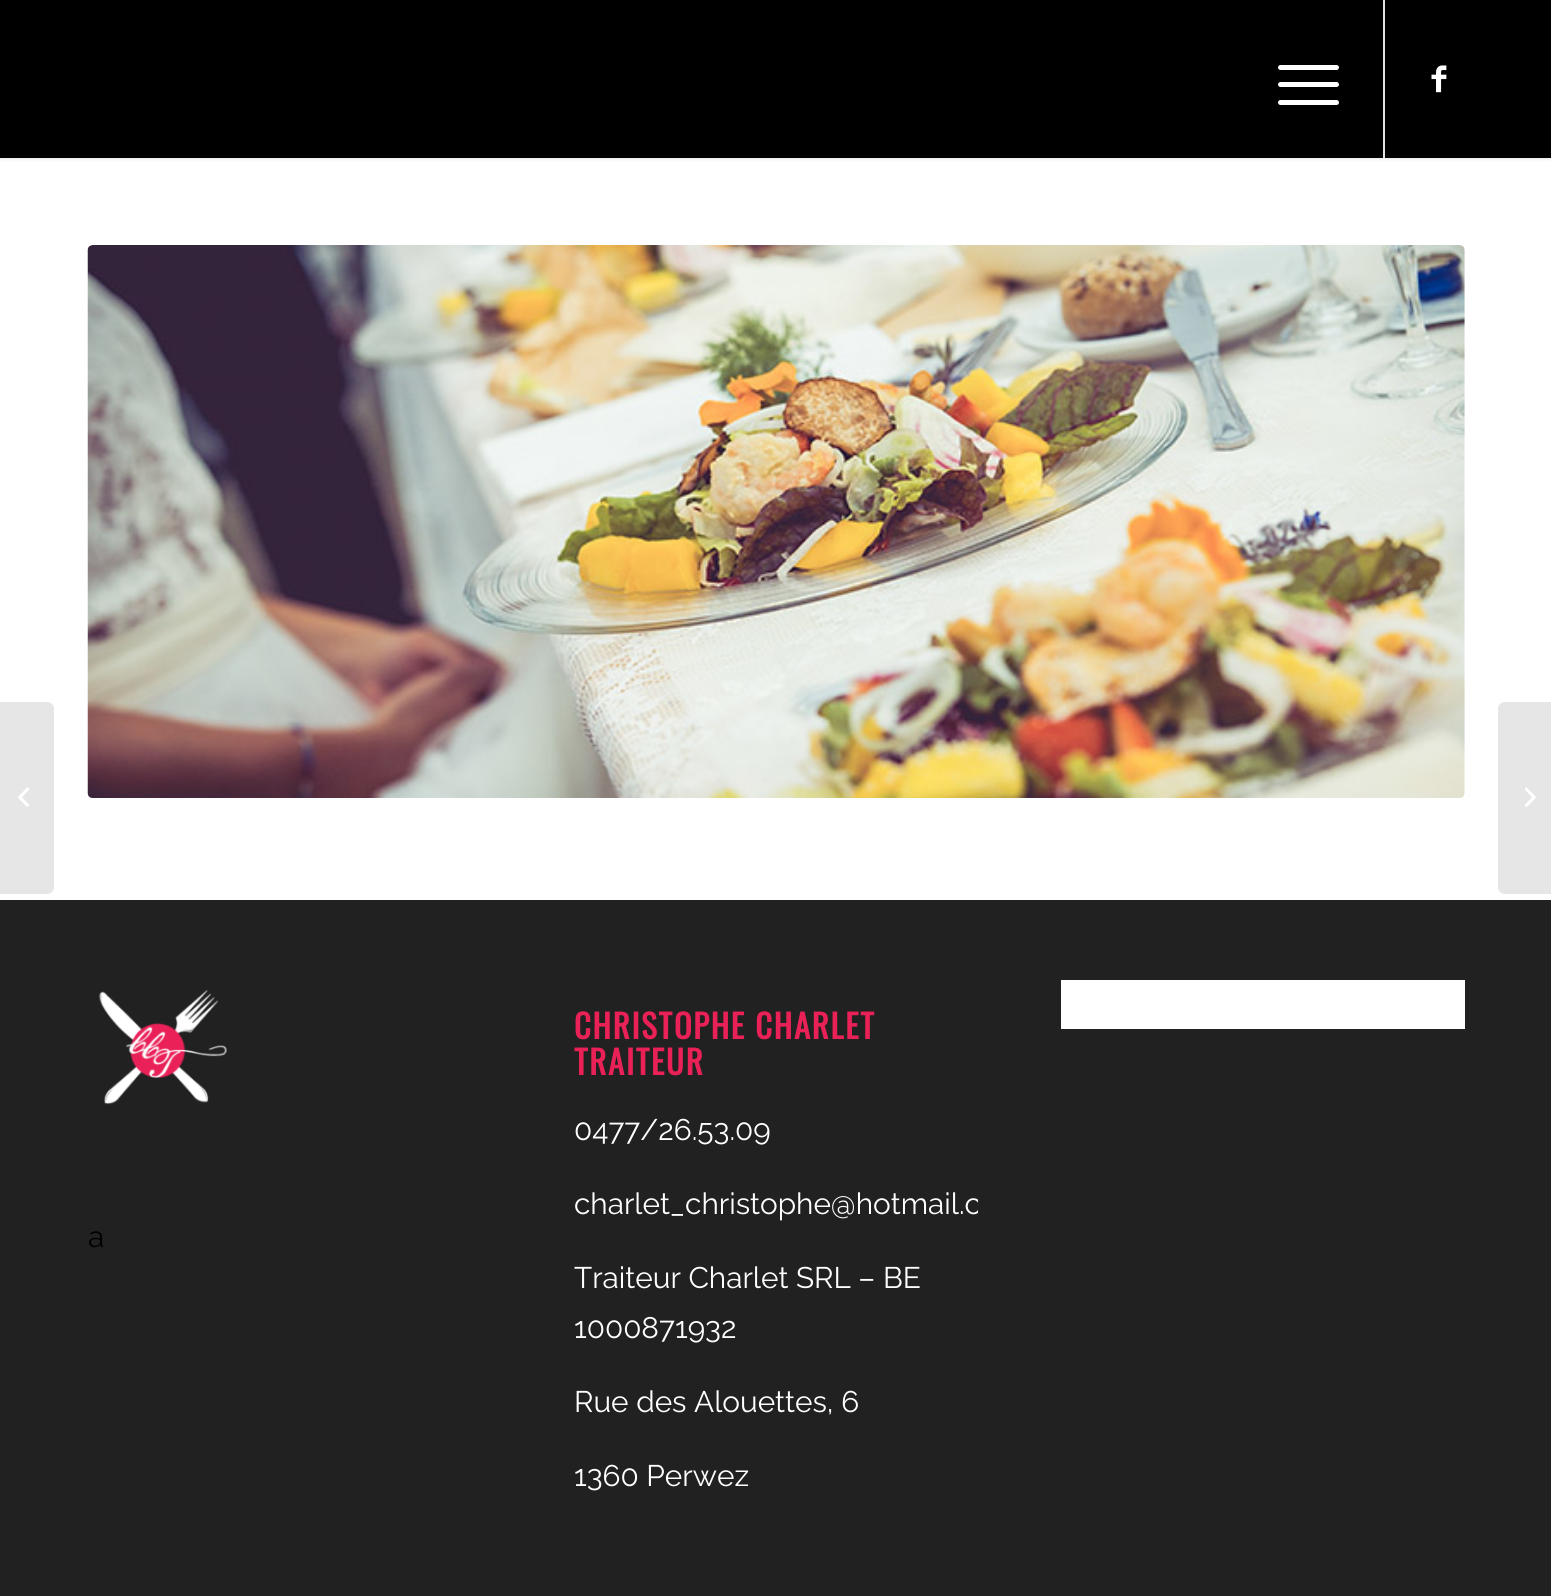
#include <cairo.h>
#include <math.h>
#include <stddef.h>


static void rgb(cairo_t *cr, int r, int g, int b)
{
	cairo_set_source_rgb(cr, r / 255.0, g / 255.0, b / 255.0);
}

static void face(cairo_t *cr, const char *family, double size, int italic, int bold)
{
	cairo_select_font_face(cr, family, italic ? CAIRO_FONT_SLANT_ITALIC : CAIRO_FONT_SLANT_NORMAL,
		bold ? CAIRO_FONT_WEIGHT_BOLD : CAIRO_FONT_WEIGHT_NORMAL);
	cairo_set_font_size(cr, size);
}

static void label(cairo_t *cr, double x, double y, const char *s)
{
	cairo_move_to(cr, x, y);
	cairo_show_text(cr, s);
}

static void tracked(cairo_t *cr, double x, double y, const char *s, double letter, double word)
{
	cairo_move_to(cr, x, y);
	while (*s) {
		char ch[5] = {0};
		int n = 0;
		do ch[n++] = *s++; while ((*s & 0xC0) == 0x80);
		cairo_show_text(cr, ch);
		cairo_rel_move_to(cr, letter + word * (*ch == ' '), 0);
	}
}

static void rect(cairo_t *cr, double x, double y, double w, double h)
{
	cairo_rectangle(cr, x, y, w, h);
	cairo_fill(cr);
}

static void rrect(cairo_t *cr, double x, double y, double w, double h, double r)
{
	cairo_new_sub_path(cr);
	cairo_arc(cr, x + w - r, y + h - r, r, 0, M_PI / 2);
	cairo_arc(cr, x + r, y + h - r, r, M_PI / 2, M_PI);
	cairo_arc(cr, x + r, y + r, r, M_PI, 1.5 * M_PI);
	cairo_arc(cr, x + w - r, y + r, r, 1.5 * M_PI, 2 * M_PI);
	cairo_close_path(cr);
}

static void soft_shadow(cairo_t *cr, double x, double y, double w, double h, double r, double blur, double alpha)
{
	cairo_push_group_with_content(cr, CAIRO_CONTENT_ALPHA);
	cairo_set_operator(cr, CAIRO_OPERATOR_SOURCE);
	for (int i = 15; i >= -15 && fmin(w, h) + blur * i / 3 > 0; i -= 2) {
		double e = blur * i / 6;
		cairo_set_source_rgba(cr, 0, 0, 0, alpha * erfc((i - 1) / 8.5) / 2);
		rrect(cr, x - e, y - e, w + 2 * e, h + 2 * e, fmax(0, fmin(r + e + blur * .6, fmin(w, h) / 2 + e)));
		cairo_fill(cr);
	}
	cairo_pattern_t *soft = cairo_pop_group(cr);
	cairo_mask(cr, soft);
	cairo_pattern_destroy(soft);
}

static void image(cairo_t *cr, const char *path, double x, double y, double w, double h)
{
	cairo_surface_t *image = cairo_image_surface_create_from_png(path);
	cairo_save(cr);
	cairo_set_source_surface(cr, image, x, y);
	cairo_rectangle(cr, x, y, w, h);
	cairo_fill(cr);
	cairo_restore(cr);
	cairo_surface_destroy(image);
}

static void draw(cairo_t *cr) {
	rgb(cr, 255, 255, 255);
	cairo_paint(cr);
	rgb(cr, 0, 0, 0);
	soft_shadow(cr, -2, -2, 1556, 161, 0, 2, 0.1);
	rgb(cr, 0, 0, 0);
	rect(cr, 0, 0, 1551, 158);
	rgb(cr, 225, 225, 225);
	rect(cr, 1383, 0, 2, 158);
	rgb(cr, 255, 255, 255);
	rrect(cr, 1278, 82, 61, 5, 2.5);
	cairo_fill(cr);
	rrect(cr, 1278, 65, 61, 5, 2.5);
	cairo_fill(cr);
	rrect(cr, 1278, 100, 61, 5, 2.5);
	cairo_fill(cr);
	image(cr, "image0.png", 1431, 65, 16, 28);
	rgb(cr, 230, 230, 230);
	cairo_new_path(cr);
	cairo_move_to(cr, 0, 702);
	cairo_line_to(cr, 47, 702);
	cairo_curve_to(cr, 51, 702, 54, 705, 54, 709);
	cairo_line_to(cr, 54, 887);
	cairo_curve_to(cr, 54, 891, 51, 894, 47, 894);
	cairo_line_to(cr, 0, 894);
	cairo_close_path(cr);
	cairo_fill(cr);
	image(cr, "image1.png", 18, 787, 11, 20);
	cairo_new_path(cr);
	cairo_move_to(cr, 1505, 702);
	cairo_line_to(cr, 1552, 702);
	cairo_line_to(cr, 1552, 894);
	cairo_line_to(cr, 1505, 894);
	cairo_curve_to(cr, 1501, 894, 1498, 891, 1498, 887);
	cairo_line_to(cr, 1498, 709);
	cairo_curve_to(cr, 1498, 705, 1501, 702, 1505, 702);
	cairo_close_path(cr);
	cairo_fill(cr);
	image(cr, "image2.png", 1525, 787, 11, 20);
	image(cr, "image3.png", 87, 245, 1378, 553);
	rgb(cr, 33, 33, 33);
	rect(cr, 0, 900, 1551, 696);
	rgb(cr, 255, 255, 255);
	rect(cr, 1061, 980, 404, 49);
	image(cr, "image4.png", 98, 990, 130, 115);
	face(cr, "Raleway Thin", 29.75, 0, 0);
	rgb(cr, 0, 0, 0);
	label(cr, 88, 1247, "a");
	face(cr, "Oswald", 32.75, 0, 1);
	rgb(cr, 234, 33, 87);
	tracked(cr, 574, 1039, "CHRISTOPHE CHARLET", 1.75, 0);
	tracked(cr, 574, 1075, "TRAITEUR", 1.75, 0);
	face(cr, "Raleway Thin", 29.75, 0, 0);
	rgb(cr, 255, 255, 255);
	label(cr, 574, 1140, "0477/26.53.09");
	cairo_save(cr);
	cairo_rectangle(cr, 574, 980, 404, 546);
	cairo_clip(cr);
	label(cr, 574, 1214, "charlet_christophe@hotmail.c");
	cairo_restore(cr);
	label(cr, 574, 1288, "Traiteur Charlet SRL – BE");
	label(cr, 574, 1338, "1000871932");
	label(cr, 574, 1412, "Rue des Alouettes, 6");
	label(cr, 574, 1486, "1360 Perwez");
}

int main(void) {
	cairo_surface_t *surface = cairo_image_surface_create(CAIRO_FORMAT_RGB24, 1551, 1596);
	cairo_t *cr = cairo_create(surface);
	cairo_font_options_t *options = cairo_font_options_create();
	cairo_font_options_set_hint_metrics(options, CAIRO_HINT_METRICS_OFF);
	cairo_font_options_set_hint_style(options, CAIRO_HINT_STYLE_NONE);
	cairo_set_font_options(cr, options);
	cairo_set_miter_limit(cr, 4);
	draw(cr);
	cairo_surface_write_to_png(surface, "render.png");
	cairo_font_options_destroy(options);
	cairo_destroy(cr);
	cairo_surface_destroy(surface);
	return 0;
}
